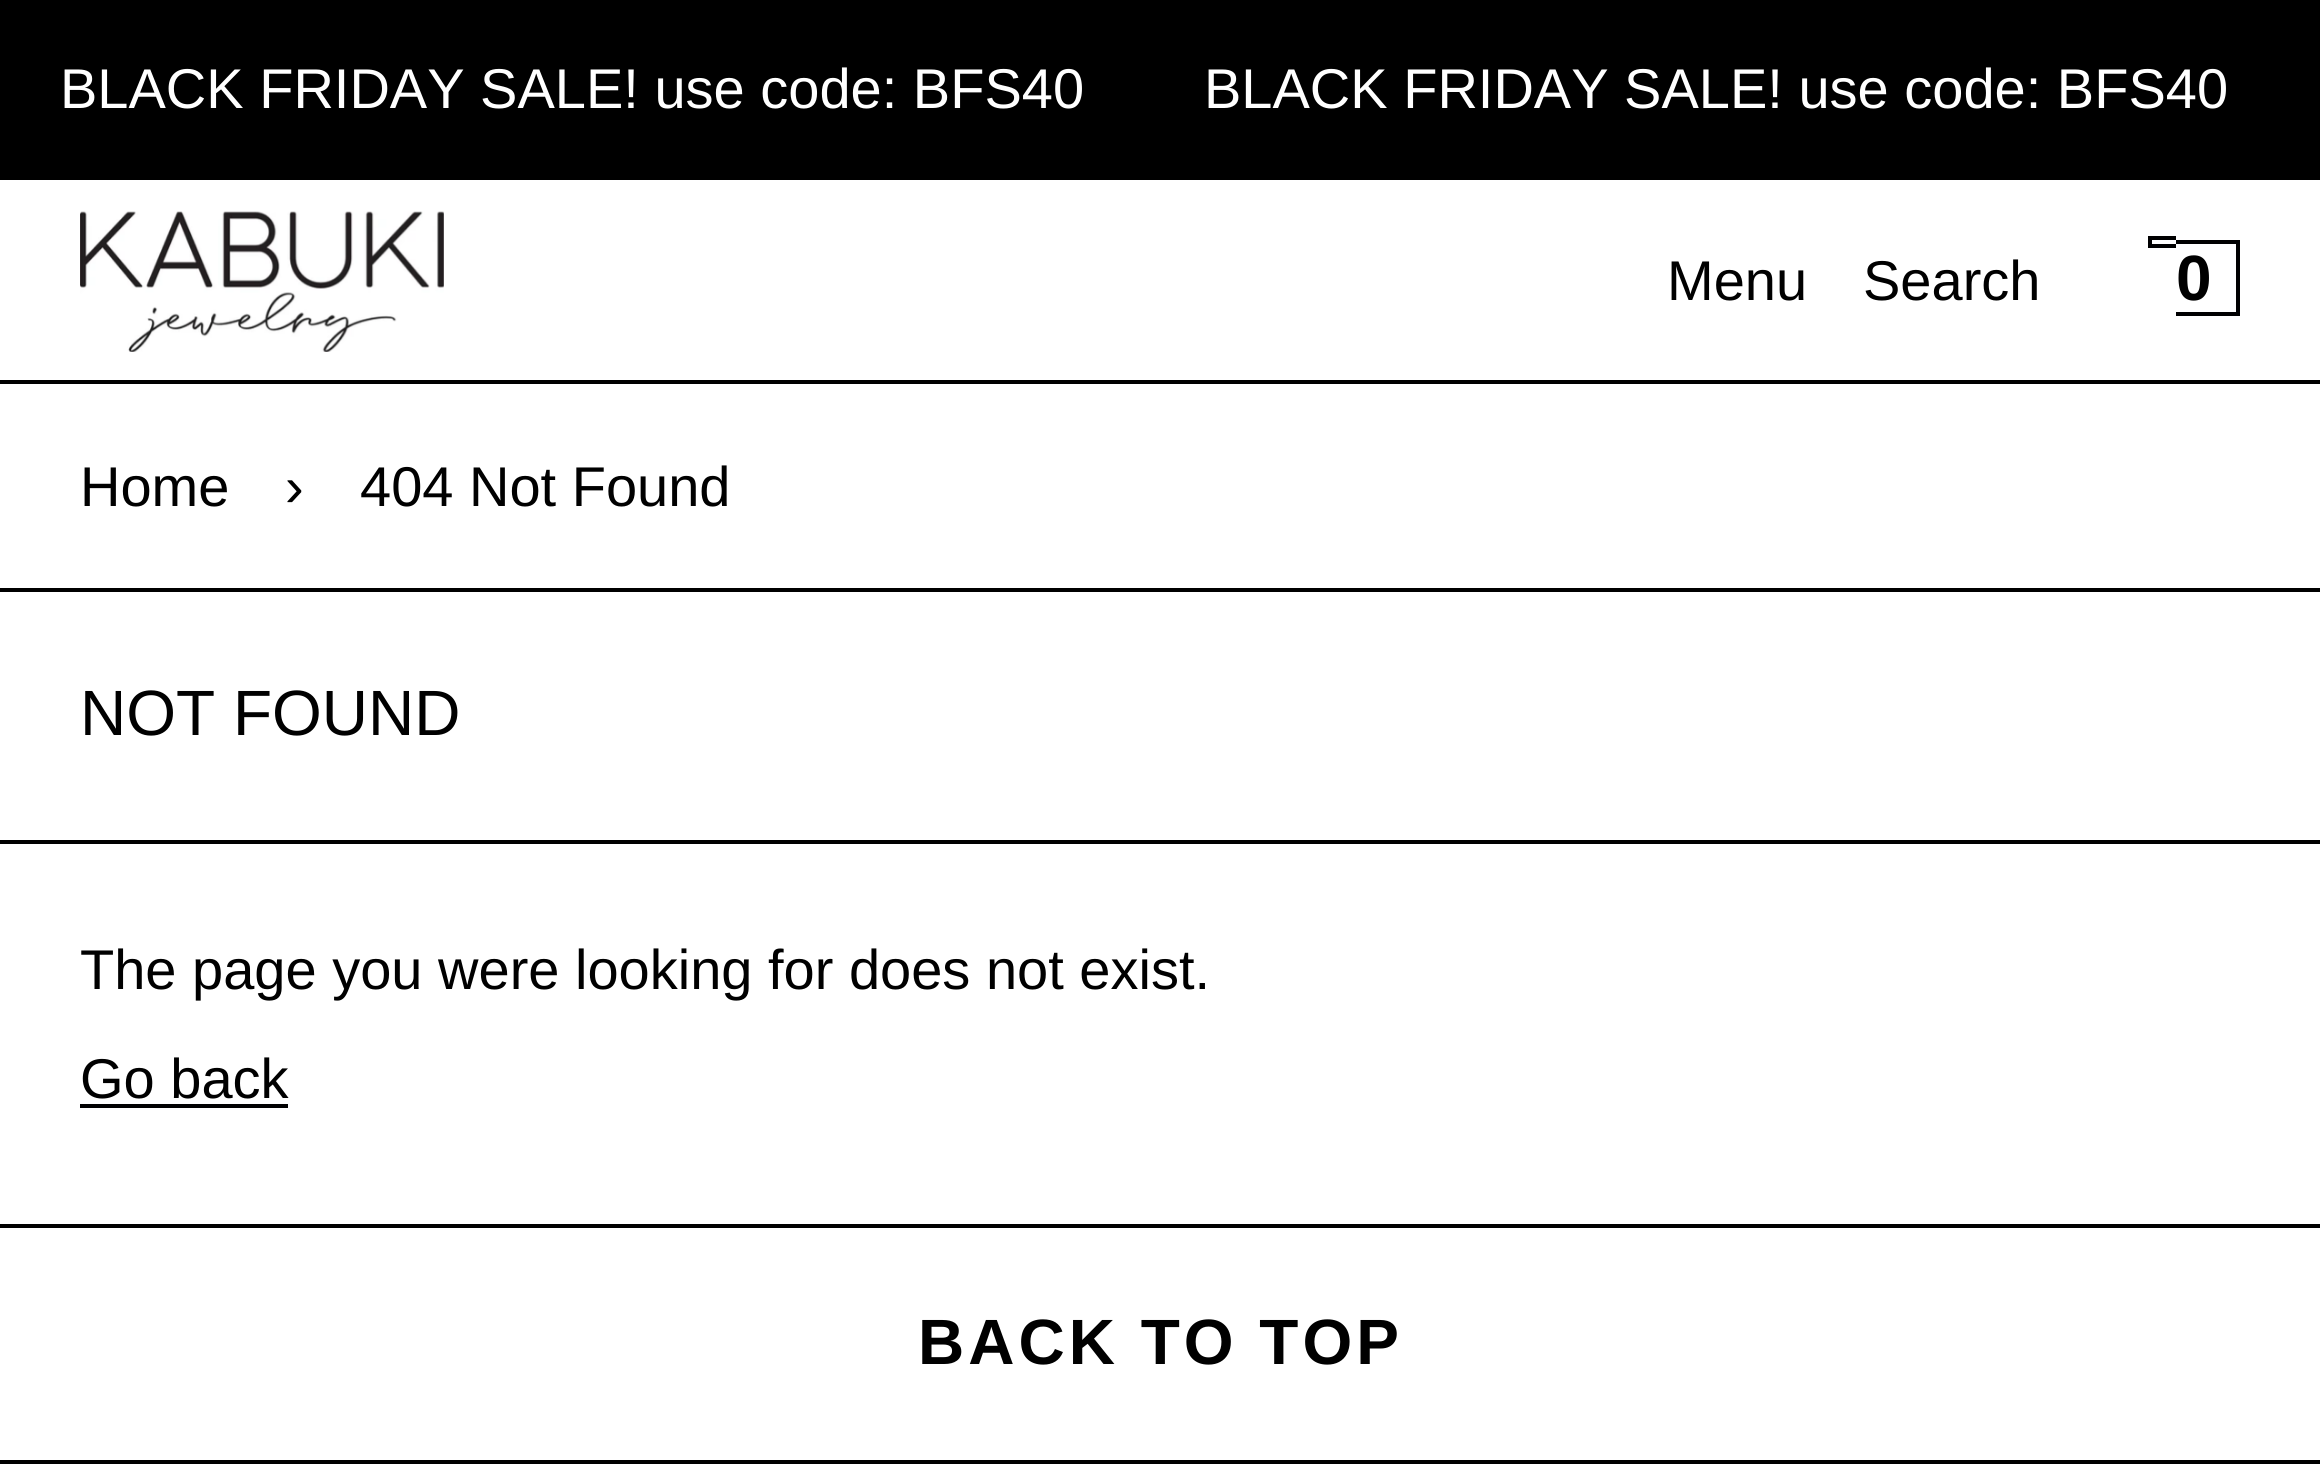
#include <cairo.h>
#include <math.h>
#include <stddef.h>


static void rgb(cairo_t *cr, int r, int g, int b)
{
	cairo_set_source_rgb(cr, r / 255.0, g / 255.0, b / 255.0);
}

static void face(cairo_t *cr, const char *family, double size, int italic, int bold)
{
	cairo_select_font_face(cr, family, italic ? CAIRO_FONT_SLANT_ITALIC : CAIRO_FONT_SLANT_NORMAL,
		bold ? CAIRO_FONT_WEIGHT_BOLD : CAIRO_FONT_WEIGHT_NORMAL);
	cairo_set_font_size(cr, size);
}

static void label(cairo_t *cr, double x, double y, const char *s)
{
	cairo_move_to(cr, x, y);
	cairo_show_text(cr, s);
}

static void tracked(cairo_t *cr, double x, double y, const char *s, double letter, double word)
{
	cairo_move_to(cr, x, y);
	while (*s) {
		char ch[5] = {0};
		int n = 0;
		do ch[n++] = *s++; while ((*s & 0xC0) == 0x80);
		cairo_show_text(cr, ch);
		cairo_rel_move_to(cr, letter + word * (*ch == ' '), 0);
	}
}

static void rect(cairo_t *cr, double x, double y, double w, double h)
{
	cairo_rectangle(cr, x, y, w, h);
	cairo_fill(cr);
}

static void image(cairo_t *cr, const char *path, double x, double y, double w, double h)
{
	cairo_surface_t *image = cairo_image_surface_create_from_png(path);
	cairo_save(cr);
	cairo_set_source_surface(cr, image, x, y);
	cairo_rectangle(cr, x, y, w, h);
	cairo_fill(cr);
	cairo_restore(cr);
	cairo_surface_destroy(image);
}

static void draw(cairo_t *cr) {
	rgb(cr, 255, 255, 255);
	cairo_paint(cr);
	rgb(cr, 0, 0, 0);
	rect(cr, 0, 0, 2320, 180);
	face(cr, "Liberation Sans", 56, 0, 0);
	rgb(cr, 255, 255, 255);
	label(cr, 60, 108, "BLACK FRIDAY SALE! use code: BFS40");
	label(cr, 1204, 108, "BLACK FRIDAY SALE! use code: BFS40");
	rgb(cr, 0, 0, 0);
	rect(cr, 0, 380, 2320, 4);
	image(cr, "image0.png", 80, 211, 364, 141);
	label(cr, 1667, 300, "Menu");
	label(cr, 1863, 300, "Search");
	face(cr, "Liberation Sans", 64, 0, 1);
	tracked(cr, 2176, 300, "0", 4, 0);
	rgb(cr, 0, 0, 1);
	rect(cr, 2148, 236, 28, 4);
	rect(cr, 2148, 244, 28, 4);
	rect(cr, 2148, 236, 4, 12);
	rect(cr, 2176, 240, 64, 4);
	rect(cr, 2236, 240, 4, 76);
	rect(cr, 2176, 312, 64, 4);
	rgb(cr, 0, 0, 0);
	rect(cr, 0, 588, 2320, 4);
	face(cr, "Liberation Sans", 56, 0, 0);
	label(cr, 80, 506, "Home");
	label(cr, 285, 506, "›");
	label(cr, 360, 506, "404 Not Found");
	rect(cr, 0, 1224, 2320, 4);
	rect(cr, 0, 840, 2320, 4);
	face(cr, "Liberation Sans", 64, 0, 0);
	label(cr, 80, 735, "NOT FOUND");
	face(cr, "Liberation Sans", 56, 0, 0);
	label(cr, 80, 989, "The page you were looking for does not exist.");
	label(cr, 80, 1098, "Go back");
	rgb(cr, 0, 0, 1);
	rect(cr, 80, 1104, 208, 4);
	rgb(cr, 0, 0, 0);
	rect(cr, 0, 1460, 2320, 4);
	face(cr, "Liberation Sans", 64, 0, 1);
	tracked(cr, 918, 1364, "BACK TO TOP", 4, 0);
}

int main(void) {
	cairo_surface_t *surface = cairo_image_surface_create(CAIRO_FORMAT_RGB24, 2320, 1473);
	cairo_t *cr = cairo_create(surface);
	cairo_font_options_t *options = cairo_font_options_create();
	cairo_font_options_set_hint_metrics(options, CAIRO_HINT_METRICS_OFF);
	cairo_font_options_set_hint_style(options, CAIRO_HINT_STYLE_NONE);
	cairo_set_font_options(cr, options);
	cairo_set_miter_limit(cr, 4);
	draw(cr);
	cairo_surface_write_to_png(surface, "render.png");
	cairo_font_options_destroy(options);
	cairo_destroy(cr);
	cairo_surface_destroy(surface);
	return 0;
}
